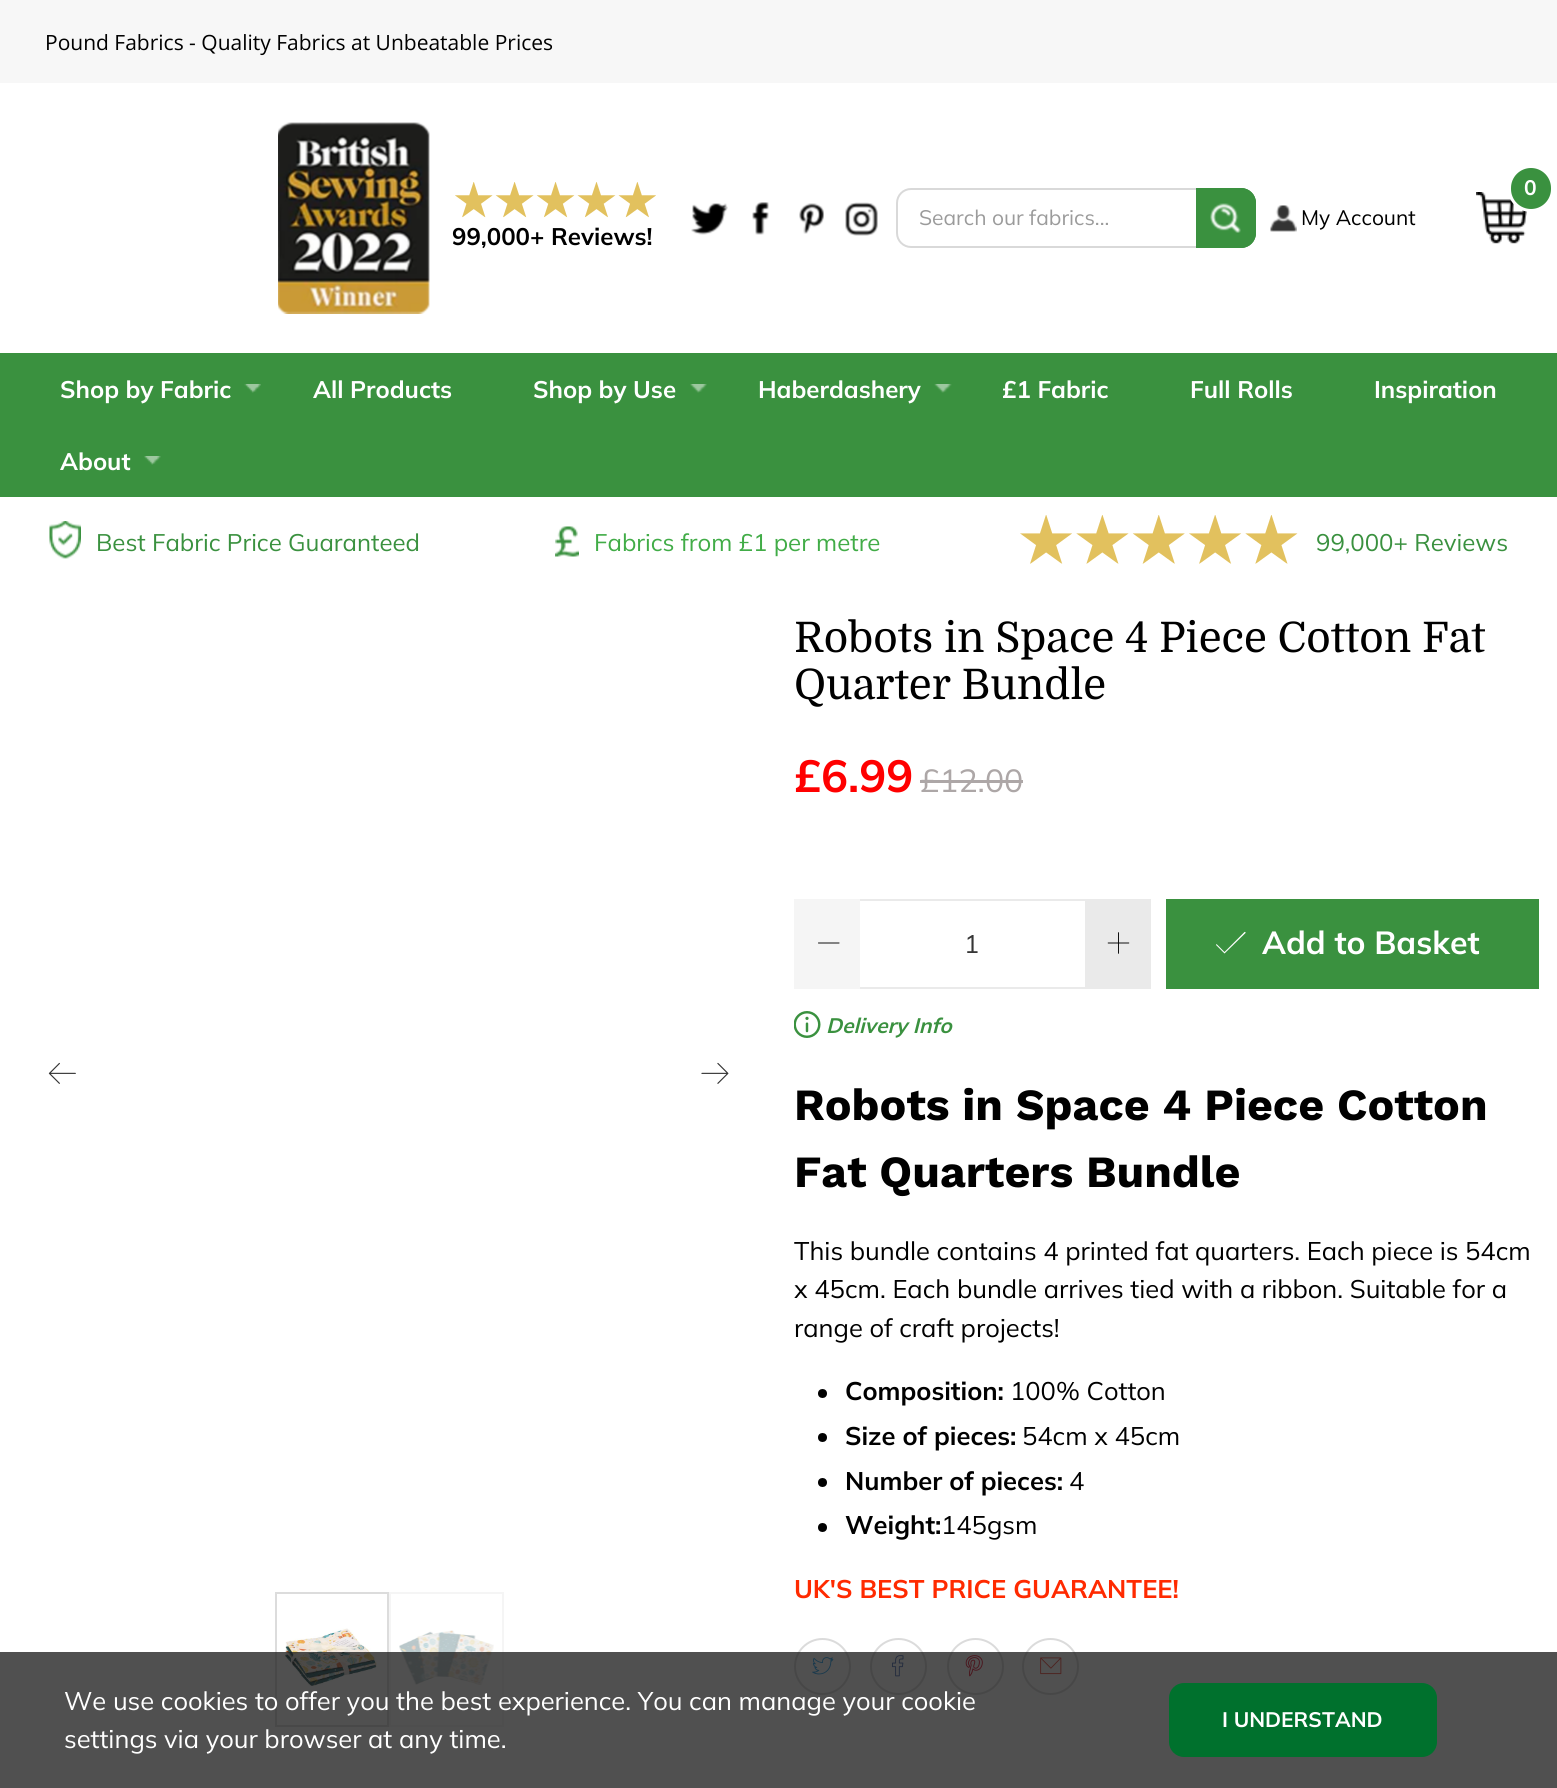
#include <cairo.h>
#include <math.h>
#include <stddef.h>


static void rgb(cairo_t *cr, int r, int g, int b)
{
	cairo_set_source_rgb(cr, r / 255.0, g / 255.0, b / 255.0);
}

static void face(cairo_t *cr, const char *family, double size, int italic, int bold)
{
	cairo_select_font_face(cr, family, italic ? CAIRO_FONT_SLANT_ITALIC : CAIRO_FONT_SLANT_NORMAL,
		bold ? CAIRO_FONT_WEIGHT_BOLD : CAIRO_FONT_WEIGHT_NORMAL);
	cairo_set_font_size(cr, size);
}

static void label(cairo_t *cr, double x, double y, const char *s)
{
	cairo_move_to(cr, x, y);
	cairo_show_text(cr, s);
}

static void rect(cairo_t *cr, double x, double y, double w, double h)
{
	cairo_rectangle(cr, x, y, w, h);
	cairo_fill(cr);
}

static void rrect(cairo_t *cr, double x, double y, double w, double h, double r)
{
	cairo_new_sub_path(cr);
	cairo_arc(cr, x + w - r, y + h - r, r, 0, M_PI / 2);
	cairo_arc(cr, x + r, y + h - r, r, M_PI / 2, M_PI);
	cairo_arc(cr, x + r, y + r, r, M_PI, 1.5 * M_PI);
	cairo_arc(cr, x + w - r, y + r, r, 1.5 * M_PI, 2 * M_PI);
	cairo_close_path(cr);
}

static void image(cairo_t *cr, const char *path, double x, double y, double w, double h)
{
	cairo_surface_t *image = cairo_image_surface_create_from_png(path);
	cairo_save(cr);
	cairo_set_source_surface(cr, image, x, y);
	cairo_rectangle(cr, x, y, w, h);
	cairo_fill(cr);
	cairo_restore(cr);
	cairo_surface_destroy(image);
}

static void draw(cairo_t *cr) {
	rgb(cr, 255, 255, 255);
	cairo_paint(cr);
	rgb(cr, 247, 247, 247);
	rect(cr, 0, 0, 1557, 83);
	face(cr, "Open Sans", 21, 0, 0);
	rgb(cr, 0, 0, 0);
	label(cr, 45, 50, "Pound Fabrics - Quality Fabrics at Unbeatable Prices");
	image(cr, "image0.png", 691, 203, 37, 32);
	image(cr, "image1.png", 752, 202, 17, 33);
	image(cr, "image2.png", 799, 203, 25, 31);
	image(cr, "image3.png", 845, 202, 33, 34);
	rrect(cr, 897, 189, 358, 58, 14);
	rgb(cr, 217, 217, 217);
	cairo_stroke(cr);
	face(cr, "Mulish", 21, 0, 0);
	rgb(cr, 155, 155, 155);
	label(cr, 919, 225, "Search our fabrics...");
	rgb(cr, 58, 145, 63);
	cairo_new_path(cr);
	cairo_move_to(cr, 1196, 188);
	cairo_line_to(cr, 1241, 188);
	cairo_curve_to(cr, 1249.5, 188, 1256, 194.5, 1256, 203);
	cairo_line_to(cr, 1256, 233);
	cairo_curve_to(cr, 1256, 241.5, 1249.5, 248, 1241, 248);
	cairo_line_to(cr, 1196, 248);
	cairo_close_path(cr);
	cairo_fill(cr);
	image(cr, "image4.png", 1210, 203, 31, 30);
	cairo_new_path(cr);
	cairo_move_to(cr, 1197, 189);
	cairo_line_to(cr, 1241, 189);
	cairo_curve_to(cr, 1248.5, 189, 1255, 195.5, 1255, 203);
	cairo_line_to(cr, 1255, 233);
	cairo_curve_to(cr, 1255, 240.5, 1248.5, 247, 1241, 247);
	cairo_line_to(cr, 1197, 247);
	cairo_close_path(cr);
	cairo_stroke(cr);
	image(cr, "image5.png", 1476, 192, 51, 52);
	rrect(cr, 1509.5, 166.5, 43, 44, 21.5);
	cairo_fill_preserve(cr);
	rgb(cr, 255, 255, 255);
	cairo_set_line_width(cr, 3);
	cairo_stroke(cr);
	face(cr, "Mulish", 21, 0, 1);
	label(cr, 1524, 195, "0");
	image(cr, "image6.png", 1270, 205, 27, 27);
	face(cr, "Mulish", 21, 0, 0);
	rgb(cr, 0, 0, 0);
	label(cr, 1301, 225, "My Account");
	image(cr, "image7.png", 278, 122, 152, 192);
	image(cr, "image8.png", 455, 182, 201, 36);
	face(cr, "Mulish", 24, 0, 1);
	label(cr, 452, 245, "99,000+ Reviews!");
	rgb(cr, 58, 145, 63);
	rect(cr, 0, 353, 1557, 144);
	rgb(cr, 255, 255, 255);
	label(cr, 60, 398, "Shop by Fabric");
	image(cr, "image9.png", 244, 384, 17, 9);
	label(cr, 313, 398, "All Products");
	label(cr, 533, 398, "Shop by Use");
	image(cr, "image10.png", 690, 384, 17, 9);
	label(cr, 758, 398, "Haberdashery");
	image(cr, "image11.png", 934, 384, 18, 9);
	label(cr, 1002, 398, "£1 Fabric");
	label(cr, 1190, 398, "Full Rolls");
	label(cr, 1374, 398, "Inspiration");
	label(cr, 60, 470, "About");
	image(cr, "image12.png", 144, 456, 17, 9);
	image(cr, "image13.png", 49, 521, 32, 38);
	face(cr, "Mulish", 24, 0, 0);
	rgb(cr, 58, 145, 63);
	label(cr, 96, 551, "Best Fabric Price Guaranteed");
	image(cr, "image14.png", 555, 526, 24, 31);
	rgb(cr, 65, 172, 71);
	label(cr, 594, 551, "Fabrics from £1 per metre");
	image(cr, "image15.png", 1020, 515, 278, 49);
	rgb(cr, 58, 145, 63);
	label(cr, 1316, 551, "99,000+ Reviews");
	image(cr, "image16.png", 48, 1062, 28, 22);
	image(cr, "image17.png", 701, 1062, 28, 22);
	cairo_rectangle(cr, 276, 1593, 112, 133);
	rgb(cr, 220, 220, 220);
	cairo_set_line_width(cr, 2);
	cairo_stroke(cr);
	image(cr, "image18.png", 284, 1628, 93, 58);
	cairo_rectangle(cr, 390, 1593, 113, 133);
	rgb(cr, 245, 245, 245);
	cairo_stroke(cr);
	image(cr, "image19.png", 399, 1630, 95, 55);
	face(cr, "Domine", 42, 0, 0);
	rgb(cr, 0, 0, 0);
	label(cr, 794, 652, "Robots in Space 4 Piece Cotton Fat");
	label(cr, 794, 699, "Quarter Bundle");
	face(cr, "Mulish", 45, 0, 1);
	rgb(cr, 255, 0, 0);
	label(cr, 794, 792, "£6.99");
	face(cr, "Mulish", 32, 0, 0);
	rgb(cr, 173, 167, 167);
	label(cr, 920, 792, "£12.00");
	rect(cr, 920, 780, 103, 3);
	rgb(cr, 245, 245, 245);
	rect(cr, 794, 899, 66, 90);
	image(cr, "image20.png", 818, 942, 22, 2);
	rgb(cr, 234, 234, 234);
	rect(cr, 860, 899, 225, 2);
	rect(cr, 860, 987, 225, 2);
	face(cr, "Mulish", 25.5, 0, 0);
	rgb(cr, 54, 54, 54);
	label(cr, 964, 953, "1");
	rgb(cr, 234, 234, 234);
	rect(cr, 1085, 899, 66, 90);
	image(cr, "image21.png", 1107, 932, 23, 22);
	rgb(cr, 58, 145, 63);
	rect(cr, 1166, 899, 373, 90);
	rgb(cr, 255, 255, 255);
	cairo_new_path(cr);
	cairo_move_to(cr, 1224.5, 953.5);
	cairo_line_to(cr, 1216, 945);
	cairo_line_to(cr, 1216.5, 944);
	cairo_line_to(cr, 1224.5, 952);
	cairo_line_to(cr, 1244.5, 932);
	cairo_curve_to(cr, 1245, 931.5, 1246, 932.5, 1245.5, 933);
	cairo_close_path(cr);
	cairo_fill(cr);
	face(cr, "Mulish", 32, 0, 1);
	label(cr, 1262, 954, "Add to Basket");
	image(cr, "image22.png", 794, 1011, 27, 27);
	face(cr, "Mulish", 21, 1, 1);
	rgb(cr, 58, 145, 63);
	label(cr, 826, 1033, "Delivery Info");
	face(cr, "Work Sans", 44.6, 0, 1);
	rgb(cr, 0, 0, 0);
	label(cr, 794, 1120, "Robots in Space 4 Piece Cotton");
	label(cr, 794, 1187, "Fat Quarters Bundle");
	face(cr, "Mulish", 25.5, 0, 0);
	label(cr, 794, 1260, "This bundle contains 4 printed fat quarters. Each piece is 54cm");
	label(cr, 794, 1298, "x 45cm. Each bundle arrives tied with a ribbon. Suitable for a");
	label(cr, 794, 1337, "range of craft projects!");
	cairo_new_path(cr);
	cairo_arc(cr, 822.5, 1393.5, 4.5, 0, 2 * M_PI);
	cairo_fill(cr);
	face(cr, "Mulish", 25.5, 0, 1);
	label(cr, 845, 1400, "Composition:");
	face(cr, "Mulish", 25.5, 0, 0);
	label(cr, 1010, 1400, "100% Cotton");
	cairo_new_path(cr);
	cairo_arc(cr, 822.5, 1437.5, 4.5, 0, 2 * M_PI);
	cairo_fill(cr);
	face(cr, "Mulish", 25.5, 0, 1);
	label(cr, 845, 1445, "Size of pieces:");
	face(cr, "Mulish", 25.5, 0, 0);
	label(cr, 1022, 1445, "54cm x 45cm");
	cairo_new_path(cr);
	cairo_arc(cr, 822.5, 1482.5, 4.5, 0, 2 * M_PI);
	cairo_fill(cr);
	face(cr, "Mulish", 25.5, 0, 1);
	label(cr, 845, 1490, "Number of pieces:");
	face(cr, "Mulish", 25.5, 0, 0);
	label(cr, 1069, 1490, "4");
	cairo_new_path(cr);
	cairo_arc(cr, 822.5, 1527.5, 4.5, 0, 2 * M_PI);
	cairo_fill(cr);
	face(cr, "Mulish", 25.5, 0, 1);
	label(cr, 845, 1534, "Weight:");
	face(cr, "Mulish", 25.5, 0, 0);
	label(cr, 941, 1534, "145gsm");
	face(cr, "Mulish", 25.5, 0, 1);
	rgb(cr, 255, 42, 0);
	label(cr, 794, 1598, "UK'S BEST PRICE GUARANTEE!");
	cairo_new_path(cr);
	cairo_arc(cr, 822.5, 1666.5, 27.5, 0, 2 * M_PI);
	rgb(cr, 219, 219, 219);
	cairo_stroke(cr);
	image(cr, "image23.png", 812, 1657, 22, 18);
	cairo_arc(cr, 898.5, 1666.5, 27.5, 0, 2 * M_PI);
	cairo_stroke(cr);
	image(cr, "image24.png", 892, 1655, 12, 22);
	cairo_arc(cr, 975.5, 1666.5, 27.5, 0, 2 * M_PI);
	cairo_stroke(cr);
	image(cr, "image25.png", 965, 1655, 18, 22);
	cairo_arc(cr, 1050.5, 1666.5, 27.5, 0, 2 * M_PI);
	cairo_stroke(cr);
	image(cr, "image26.png", 1040, 1657, 22, 18);
	cairo_set_source_rgba(cr, 0.102, 0.102, 0.102, 0.76);
	rect(cr, 0, 1652, 1557, 136);
	face(cr, "Mulish", 25.5, 0, 0);
	rgb(cr, 255, 255, 255);
	label(cr, 64, 1710, "We use cookies to offer you the best experience. You can manage your cookie");
	label(cr, 64, 1748, "settings via your browser at any time.");
	rgb(cr, 0, 113, 45);
	rrect(cr, 1169, 1683, 268, 74, 15);
	cairo_fill(cr);
	face(cr, "Mulish", 21, 0, 1);
	rgb(cr, 255, 255, 255);
	label(cr, 1222, 1727, "I UNDERSTAND");
}

int main(void) {
	cairo_surface_t *surface = cairo_image_surface_create(CAIRO_FORMAT_RGB24, 1557, 1788);
	cairo_t *cr = cairo_create(surface);
	cairo_font_options_t *options = cairo_font_options_create();
	cairo_font_options_set_hint_metrics(options, CAIRO_HINT_METRICS_OFF);
	cairo_font_options_set_hint_style(options, CAIRO_HINT_STYLE_NONE);
	cairo_set_font_options(cr, options);
	cairo_set_miter_limit(cr, 4);
	draw(cr);
	cairo_surface_write_to_png(surface, "render.png");
	cairo_font_options_destroy(options);
	cairo_destroy(cr);
	cairo_surface_destroy(surface);
	return 0;
}
